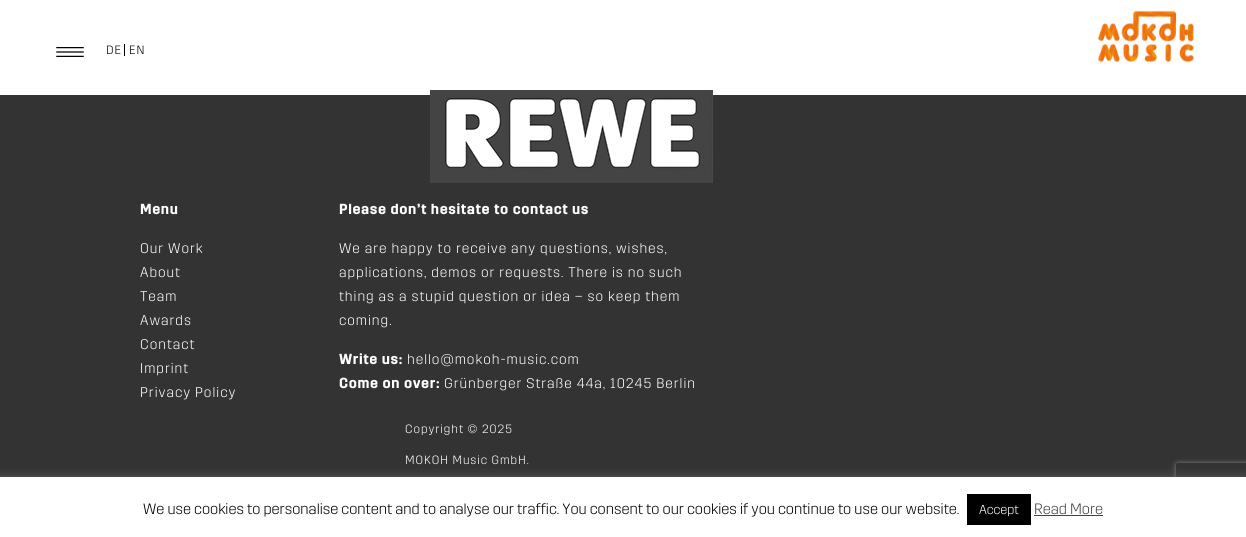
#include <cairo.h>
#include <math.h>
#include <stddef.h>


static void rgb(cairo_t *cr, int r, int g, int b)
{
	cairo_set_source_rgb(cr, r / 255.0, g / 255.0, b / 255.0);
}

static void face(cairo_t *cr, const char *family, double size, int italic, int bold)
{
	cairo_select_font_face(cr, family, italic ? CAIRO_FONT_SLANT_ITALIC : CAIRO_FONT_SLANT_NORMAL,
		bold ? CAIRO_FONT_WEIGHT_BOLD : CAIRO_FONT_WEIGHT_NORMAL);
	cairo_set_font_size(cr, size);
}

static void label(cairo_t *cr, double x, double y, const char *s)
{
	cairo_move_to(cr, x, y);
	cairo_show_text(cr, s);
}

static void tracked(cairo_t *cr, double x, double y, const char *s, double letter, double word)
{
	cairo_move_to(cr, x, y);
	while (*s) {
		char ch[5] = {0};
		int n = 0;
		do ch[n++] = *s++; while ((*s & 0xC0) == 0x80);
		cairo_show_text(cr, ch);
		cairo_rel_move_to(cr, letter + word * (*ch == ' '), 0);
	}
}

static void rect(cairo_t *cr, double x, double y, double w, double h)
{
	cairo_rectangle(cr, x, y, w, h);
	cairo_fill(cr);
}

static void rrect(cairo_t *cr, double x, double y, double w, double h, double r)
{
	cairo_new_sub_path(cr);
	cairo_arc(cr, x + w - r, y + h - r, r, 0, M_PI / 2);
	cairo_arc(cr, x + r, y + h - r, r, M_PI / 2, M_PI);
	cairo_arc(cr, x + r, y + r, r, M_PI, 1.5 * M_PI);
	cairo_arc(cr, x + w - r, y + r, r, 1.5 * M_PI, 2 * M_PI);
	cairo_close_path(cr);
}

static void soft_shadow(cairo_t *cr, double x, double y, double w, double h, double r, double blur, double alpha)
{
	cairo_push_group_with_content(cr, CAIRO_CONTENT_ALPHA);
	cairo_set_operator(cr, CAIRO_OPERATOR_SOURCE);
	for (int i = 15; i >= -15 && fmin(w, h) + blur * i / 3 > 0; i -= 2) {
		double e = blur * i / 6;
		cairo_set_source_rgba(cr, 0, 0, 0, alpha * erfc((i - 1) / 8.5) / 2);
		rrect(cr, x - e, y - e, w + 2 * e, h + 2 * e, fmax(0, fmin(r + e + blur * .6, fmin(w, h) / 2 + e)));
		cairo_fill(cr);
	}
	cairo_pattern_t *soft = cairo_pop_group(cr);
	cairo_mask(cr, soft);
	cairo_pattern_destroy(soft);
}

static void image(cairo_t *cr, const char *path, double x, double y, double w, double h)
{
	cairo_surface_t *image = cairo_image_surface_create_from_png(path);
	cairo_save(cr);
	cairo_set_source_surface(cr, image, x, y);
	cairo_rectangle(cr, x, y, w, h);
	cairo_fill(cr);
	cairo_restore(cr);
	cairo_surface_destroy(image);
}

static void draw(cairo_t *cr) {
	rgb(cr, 255, 255, 255);
	cairo_paint(cr);
	image(cr, "image0.png", 56, 47, 28, 10);
	face(cr, "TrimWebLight", 12, 0, 0);
	rgb(cr, 0, 0, 0);
	tracked(cr, 106, 54, "DE", 1, 0);
	rect(cr, 124, 44, 1, 12);
	tracked(cr, 129, 54, "EN", 1, 0);
	image(cr, "image1.png", 1098, 10, 96, 53);
	rgb(cr, 51, 51, 51);
	rect(cr, 0, 95, 1246, 382);
	image(cr, "image2.png", 430, 90, 283, 93);
	face(cr, "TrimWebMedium", 14, 0, 1);
	rgb(cr, 255, 255, 255);
	tracked(cr, 140, 214, "Menu", 1, 0);
	face(cr, "TrimWebLight", 14, 0, 0);
	tracked(cr, 140, 253, "Our Work", 1, 0);
	tracked(cr, 140, 277, "About", 1, 0);
	tracked(cr, 140, 301, "Team", 1, 0);
	tracked(cr, 140, 325, "Awards", 1, 0);
	tracked(cr, 140, 349, "Contact", 1, 0);
	tracked(cr, 140, 373, "Imprint", 1, 0);
	tracked(cr, 140, 397, "Privacy Policy", 1, 0);
	face(cr, "TrimWebMedium", 14, 0, 1);
	tracked(cr, 339, 214, "Please don’t hesitate to contact us", 1, 0);
	face(cr, "TrimWebLight", 14, 0, 0);
	tracked(cr, 339, 253, "We are happy to receive any questions, wishes,", 1, 0);
	tracked(cr, 339, 277, "applications, demos or requests. There is no such", 1, 0);
	tracked(cr, 339, 301, "thing as a stupid question or idea – so keep them", 1, 0);
	tracked(cr, 339, 325, "coming.", 1, 0);
	face(cr, "TrimWebMedium", 14, 0, 1);
	tracked(cr, 339, 364, "Write us:", 1, 0);
	face(cr, "TrimWebLight", 14, 0, 0);
	tracked(cr, 407, 364, "hello@mokoh-music.com", 1, 0);
	face(cr, "TrimWebMedium", 14, 0, 1);
	tracked(cr, 339, 388, "Come on over:", 1, 0);
	face(cr, "TrimWebLight", 14, 0, 0);
	tracked(cr, 444, 388, "Grünberger Straße 44a, 10245 Berlin", 1, 0);
	face(cr, "TrimWebLight", 12, 0, 0);
	tracked(cr, 405, 433, "Copyright © 2025", 1, 0);
	tracked(cr, 405, 464, "MOKOH Music GmbH.", 1, 0);
	rgb(cr, 172, 171, 171);
	soft_shadow(cr, 0, 476, 1246, 60, 0, 5, 0.3);
	cairo_save(cr);
	cairo_set_fill_rule(cr, CAIRO_FILL_RULE_EVEN_ODD);
	cairo_new_path(cr);
	cairo_move_to(cr, 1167, 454);
	cairo_line_to(cr, 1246, 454);
	cairo_line_to(cr, 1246, 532);
	cairo_line_to(cr, 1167, 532);
	cairo_close_path(cr);
	cairo_move_to(cr, 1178, 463);
	cairo_line_to(cr, 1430, 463);
	cairo_curve_to(cr, 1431, 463, 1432, 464, 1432, 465);
	cairo_line_to(cr, 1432, 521);
	cairo_curve_to(cr, 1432, 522, 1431, 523, 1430, 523);
	cairo_line_to(cr, 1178, 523);
	cairo_curve_to(cr, 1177, 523, 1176, 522, 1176, 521);
	cairo_line_to(cr, 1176, 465);
	cairo_curve_to(cr, 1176, 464, 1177, 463, 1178, 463);
	cairo_close_path(cr);
	cairo_clip(cr);
	rgb(cr, 128, 128, 128);
	soft_shadow(cr, 1176, 463, 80, 60, 2, 2.5, 1);
	cairo_restore(cr);
	rgb(cr, 255, 255, 255);
	rect(cr, 0, 477, 1246, 60);
	face(cr, "TrimWebLight", 15, 0, 0);
	rgb(cr, 0, 0, 0);
	label(cr, 143, 514, "We use cookies to personalise content and to analyse our traffic. You consent to our cookies if you continue to use our website.");
	rect(cr, 967, 494, 64, 31);
	face(cr, "TrimWebLight", 13, 0, 0);
	rgb(cr, 255, 255, 255);
	label(cr, 979, 514, "Accept");
	face(cr, "TrimWebLight", 15, 0, 0);
	rgb(cr, 68, 68, 68);
	label(cr, 1034, 514, "Read More");
	rect(cr, 1034, 515, 69, 1);
}

int main(void) {
	cairo_surface_t *surface = cairo_image_surface_create(CAIRO_FORMAT_RGB24, 1246, 537);
	cairo_t *cr = cairo_create(surface);
	cairo_font_options_t *options = cairo_font_options_create();
	cairo_font_options_set_hint_metrics(options, CAIRO_HINT_METRICS_OFF);
	cairo_font_options_set_hint_style(options, CAIRO_HINT_STYLE_NONE);
	cairo_set_font_options(cr, options);
	cairo_set_miter_limit(cr, 4);
	draw(cr);
	cairo_surface_write_to_png(surface, "render.png");
	cairo_font_options_destroy(options);
	cairo_destroy(cr);
	cairo_surface_destroy(surface);
	return 0;
}
